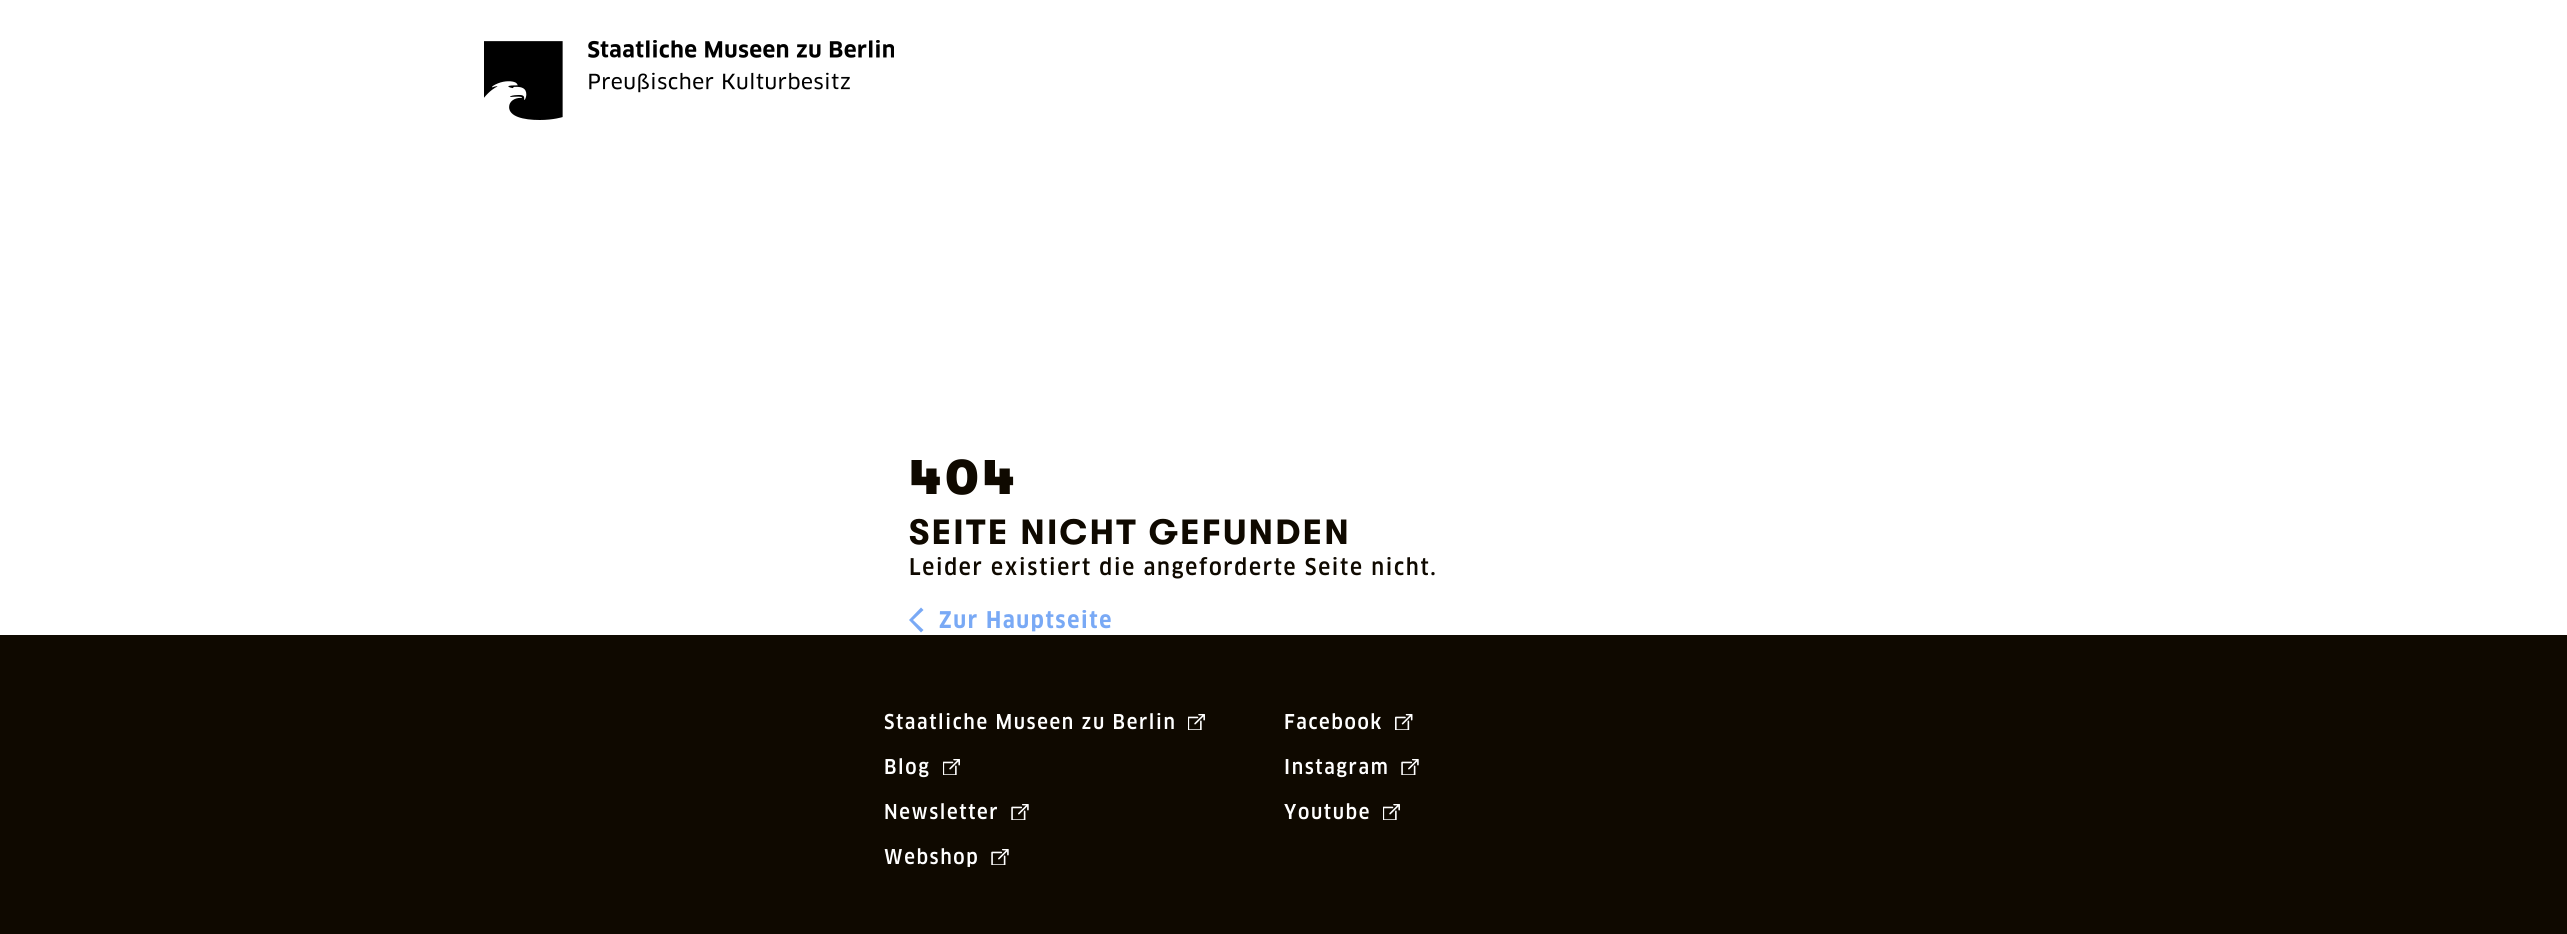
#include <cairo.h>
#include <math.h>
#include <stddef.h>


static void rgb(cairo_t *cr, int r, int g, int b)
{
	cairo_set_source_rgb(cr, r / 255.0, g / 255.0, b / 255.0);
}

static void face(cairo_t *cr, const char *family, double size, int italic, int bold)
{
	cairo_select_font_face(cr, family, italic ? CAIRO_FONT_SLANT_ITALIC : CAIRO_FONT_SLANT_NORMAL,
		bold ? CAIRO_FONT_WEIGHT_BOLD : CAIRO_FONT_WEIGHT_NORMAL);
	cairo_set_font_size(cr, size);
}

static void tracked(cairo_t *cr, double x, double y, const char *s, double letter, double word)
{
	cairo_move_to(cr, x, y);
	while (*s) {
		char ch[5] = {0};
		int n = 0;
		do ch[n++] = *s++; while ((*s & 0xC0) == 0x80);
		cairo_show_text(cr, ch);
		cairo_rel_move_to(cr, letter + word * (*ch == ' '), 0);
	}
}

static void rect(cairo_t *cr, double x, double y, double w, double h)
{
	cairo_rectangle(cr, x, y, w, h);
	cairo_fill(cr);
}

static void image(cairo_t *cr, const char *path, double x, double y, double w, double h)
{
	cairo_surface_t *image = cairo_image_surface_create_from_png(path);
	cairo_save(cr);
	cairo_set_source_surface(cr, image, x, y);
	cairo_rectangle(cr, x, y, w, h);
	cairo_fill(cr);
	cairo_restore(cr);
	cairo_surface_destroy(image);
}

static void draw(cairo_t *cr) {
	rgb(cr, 255, 255, 255);
	cairo_paint(cr);
	image(cr, "image0.png", 484, 40, 410, 80);
	face(cr, "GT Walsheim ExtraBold", 50, 0, 0);
	rgb(cr, 15, 9, 0);
	tracked(cr, 909, 494, "404", 3.5, 0);
	face(cr, "GT Walsheim", 35, 0, 1);
	tracked(cr, 909, 544, "SEITE NICHT GEFUNDEN", 2.25, 0);
	face(cr, "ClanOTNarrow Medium", 22.5, 0, 0);
	tracked(cr, 909, 575, "Leider existiert die angeforderte Seite nicht.", 1.7, 0);
	rgb(cr, 121, 169, 245);
	cairo_new_path(cr);
	cairo_move_to(cr, 923.5, 610);
	cairo_line_to(cr, 921, 607.5);
	cairo_line_to(cr, 909, 620);
	cairo_line_to(cr, 921, 632.5);
	cairo_line_to(cr, 923.5, 630);
	cairo_line_to(cr, 913, 620);
	cairo_close_path(cr);
	cairo_fill(cr);
	face(cr, "ClanOTNarrow", 22.5, 0, 1);
	tracked(cr, 939, 628, "Zur Hauptseite", 1.6, 0);
	rgb(cr, 15, 9, 0);
	rect(cr, 0, 635, 2567, 299);
	face(cr, "ClanOTNarrow Medium", 20, 0, 0);
	rgb(cr, 255, 255, 255);
	tracked(cr, 884, 729, "Staatliche Museen zu Berlin", 1.6, 0);
	image(cr, "image1.png", 1188, 714, 17, 16);
	tracked(cr, 884, 774, "Blog", 1.6, 0);
	image(cr, "image1.png", 943, 759, 17, 16);
	tracked(cr, 884, 819, "Newsletter", 1.6, 0);
	image(cr, "image2.png", 1011, 804, 18, 16);
	tracked(cr, 884, 864, "Webshop", 1.6, 0);
	image(cr, "image2.png", 991, 849, 18, 16);
	tracked(cr, 1284, 729, "Facebook", 1.6, 0);
	image(cr, "image3.png", 1395, 714, 18, 16);
	tracked(cr, 1284, 774, "Instagram", 1.6, 0);
	image(cr, "image2.png", 1401, 759, 18, 16);
	tracked(cr, 1284, 819, "Youtube", 1.6, 0);
	image(cr, "image1.png", 1383, 804, 17, 16);
}

int main(void) {
	cairo_surface_t *surface = cairo_image_surface_create(CAIRO_FORMAT_RGB24, 2567, 934);
	cairo_t *cr = cairo_create(surface);
	cairo_font_options_t *options = cairo_font_options_create();
	cairo_font_options_set_hint_metrics(options, CAIRO_HINT_METRICS_OFF);
	cairo_font_options_set_hint_style(options, CAIRO_HINT_STYLE_NONE);
	cairo_set_font_options(cr, options);
	cairo_set_miter_limit(cr, 4);
	draw(cr);
	cairo_surface_write_to_png(surface, "render.png");
	cairo_font_options_destroy(options);
	cairo_destroy(cr);
	cairo_surface_destroy(surface);
	return 0;
}
